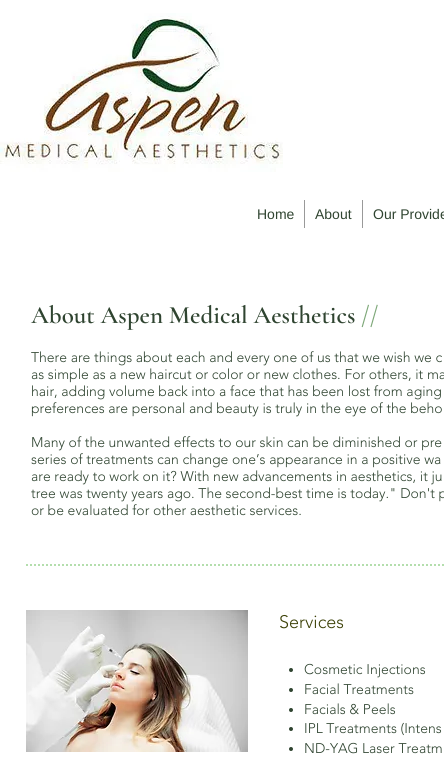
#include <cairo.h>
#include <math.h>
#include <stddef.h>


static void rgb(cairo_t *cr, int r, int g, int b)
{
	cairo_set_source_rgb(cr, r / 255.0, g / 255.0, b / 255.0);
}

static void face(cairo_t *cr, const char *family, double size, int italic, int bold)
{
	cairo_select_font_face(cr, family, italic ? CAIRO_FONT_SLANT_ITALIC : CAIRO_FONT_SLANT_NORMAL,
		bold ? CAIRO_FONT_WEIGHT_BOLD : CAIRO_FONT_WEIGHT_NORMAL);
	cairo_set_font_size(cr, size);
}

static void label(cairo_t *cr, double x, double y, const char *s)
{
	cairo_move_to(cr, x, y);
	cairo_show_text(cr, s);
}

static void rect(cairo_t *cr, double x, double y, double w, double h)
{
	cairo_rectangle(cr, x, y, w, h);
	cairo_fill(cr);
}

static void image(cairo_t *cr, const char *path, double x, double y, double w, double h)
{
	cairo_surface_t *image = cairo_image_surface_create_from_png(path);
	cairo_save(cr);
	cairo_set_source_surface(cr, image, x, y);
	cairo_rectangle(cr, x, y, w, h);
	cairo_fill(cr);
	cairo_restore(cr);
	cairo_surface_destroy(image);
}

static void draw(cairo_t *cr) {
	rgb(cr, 255, 255, 255);
	cairo_paint(cr);
	image(cr, "image0.png", 0, 13, 283, 159);
	face(cr, "Liberation Sans", 14, 0, 0);
	rgb(cr, 47, 68, 48);
	label(cr, 257, 219, "Home");
	rgb(cr, 153, 153, 153);
	rect(cr, 304, 200, 1, 28);
	rgb(cr, 47, 68, 48);
	label(cr, 315, 219, "About");
	rgb(cr, 153, 153, 153);
	rect(cr, 362, 200, 1, 28);
	rgb(cr, 47, 68, 48);
	label(cr, 373, 219, "Our Provide");
	face(cr, "Cormorant Garamond SemiBold", 25, 0, 0);
	label(cr, 31, 323, "About Aspen Medical Aesthetics");
	rgb(cr, 126, 168, 121);
	label(cr, 361, 323, "//");
	face(cr, "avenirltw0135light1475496 Light", 14, 0, 0);
	rgb(cr, 47, 68, 48);
	label(cr, 31, 362, "There are things about each and every one of us that we wish we c");
	label(cr, 31, 379, "as simple as a new haircut or color or new clothes. For others, it ma");
	label(cr, 31, 396, "hair, adding volume back into a face that has been lost from aging");
	label(cr, 31, 413, "preferences are personal and beauty is truly in the eye of the beho");
	label(cr, 31, 447, "Many of the unwanted effects to our skin can be diminished or pre");
	label(cr, 31, 464, "series of treatments can change one’s appearance in a positive wa");
	label(cr, 31, 481, "are ready to work on it? With new advancements in aesthetics, it ju");
	label(cr, 31, 498, "tree was twenty years ago. The second-best time is today.\" Don't p");
	label(cr, 31, 515, "or be evaluated for other aesthetic services.");
	cairo_new_path(cr);
	cairo_move_to(cr, 26, 565);
	cairo_line_to(cr, 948, 565);
	rgb(cr, 180, 222, 173);
	cairo_set_dash(cr, (double[]){2, 2}, 2, 0);
	cairo_stroke(cr);
	image(cr, "image1.png", 26, 610, 222, 142);
	face(cr, "avenirltw0135light1475496 Light", 18, 0, 0);
	rgb(cr, 60, 65, 7);
	label(cr, 279, 628, "Services");
	rgb(cr, 47, 68, 48);
	cairo_new_path(cr);
	cairo_arc(cr, 291, 670, 2, 0, 2 * M_PI);
	cairo_fill(cr);
	face(cr, "avenirltw0135light1475496 Light", 14, 0, 0);
	label(cr, 304, 674, "Cosmetic Injections");
	cairo_new_path(cr);
	cairo_arc(cr, 291, 690, 2, 0, 2 * M_PI);
	cairo_fill(cr);
	label(cr, 304, 694, "Facial Treatments");
	cairo_new_path(cr);
	cairo_arc(cr, 291, 710, 2, 0, 2 * M_PI);
	cairo_fill(cr);
	label(cr, 304, 714, "Facials & Peels");
	cairo_new_path(cr);
	cairo_arc(cr, 291, 729, 2, 0, 2 * M_PI);
	cairo_fill(cr);
	label(cr, 304, 733, "IPL Treatments (Intens");
	cairo_new_path(cr);
	cairo_arc(cr, 291, 749, 2, 0, 2 * M_PI);
	cairo_fill(cr);
	label(cr, 304, 753, "ND-YAG Laser Treatm");
}

int main(void) {
	cairo_surface_t *surface = cairo_image_surface_create(CAIRO_FORMAT_RGB24, 444, 773);
	cairo_t *cr = cairo_create(surface);
	cairo_font_options_t *options = cairo_font_options_create();
	cairo_font_options_set_hint_metrics(options, CAIRO_HINT_METRICS_OFF);
	cairo_font_options_set_hint_style(options, CAIRO_HINT_STYLE_NONE);
	cairo_set_font_options(cr, options);
	cairo_set_miter_limit(cr, 4);
	draw(cr);
	cairo_surface_write_to_png(surface, "render.png");
	cairo_font_options_destroy(options);
	cairo_destroy(cr);
	cairo_surface_destroy(surface);
	return 0;
}
